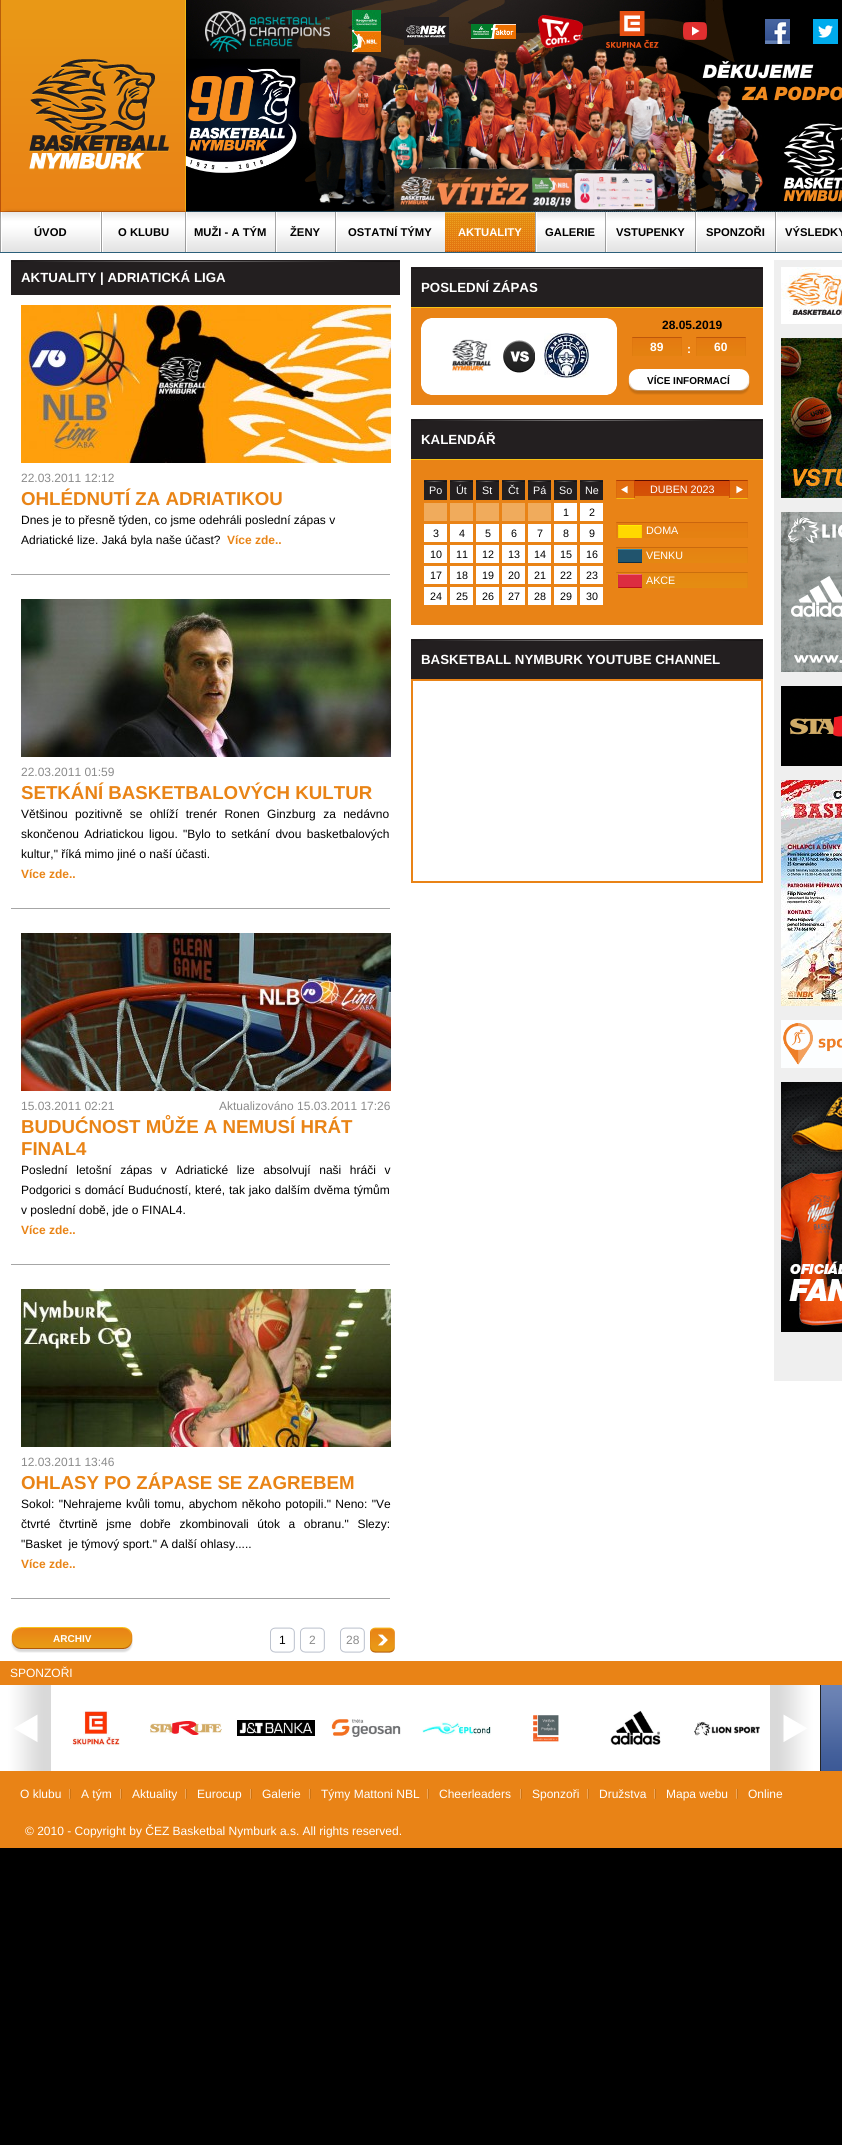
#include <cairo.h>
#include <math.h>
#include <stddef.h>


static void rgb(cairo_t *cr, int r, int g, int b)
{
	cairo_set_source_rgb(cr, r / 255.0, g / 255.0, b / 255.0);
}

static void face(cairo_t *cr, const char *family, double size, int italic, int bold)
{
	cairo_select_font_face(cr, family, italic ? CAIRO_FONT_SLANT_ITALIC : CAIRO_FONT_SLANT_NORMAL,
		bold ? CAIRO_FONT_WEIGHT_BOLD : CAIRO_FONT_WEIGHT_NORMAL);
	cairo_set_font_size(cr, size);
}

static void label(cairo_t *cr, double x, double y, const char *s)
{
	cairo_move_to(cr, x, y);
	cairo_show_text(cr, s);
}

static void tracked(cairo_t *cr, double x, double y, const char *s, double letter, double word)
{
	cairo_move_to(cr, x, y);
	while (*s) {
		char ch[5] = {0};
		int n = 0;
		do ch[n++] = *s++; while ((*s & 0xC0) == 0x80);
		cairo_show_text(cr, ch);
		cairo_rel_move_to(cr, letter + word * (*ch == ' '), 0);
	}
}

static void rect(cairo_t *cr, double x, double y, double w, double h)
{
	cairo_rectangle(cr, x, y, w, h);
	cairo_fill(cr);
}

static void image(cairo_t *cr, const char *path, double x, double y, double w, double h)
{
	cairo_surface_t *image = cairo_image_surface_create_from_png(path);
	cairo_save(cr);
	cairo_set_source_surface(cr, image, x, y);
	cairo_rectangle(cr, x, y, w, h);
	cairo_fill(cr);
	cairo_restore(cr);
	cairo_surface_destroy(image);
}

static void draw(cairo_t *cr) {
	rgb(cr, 0, 0, 0);
	cairo_paint(cr);
	image(cr, "image0.png", 186, 211, 656, 1);
	image(cr, "image1.png", 186, 0, 656, 211);
	image(cr, "image2.png", 0, 0, 186, 212);
	image(cr, "image3.png", 205, 11, 125, 41);
	image(cr, "image4.png", 352, 10, 29, 42);
	image(cr, "image5.png", 404, 17, 45, 28);
	image(cr, "image6.png", 471, 24, 45, 15);
	image(cr, "image7.png", 538, 15, 45, 33);
	image(cr, "image8.png", 606, 11, 53, 37);
	image(cr, "image9.png", 683, 22, 24, 18);
	image(cr, "image10.png", 765, 19, 25, 25);
	image(cr, "image11.png", 813, 19, 25, 25);
	rgb(cr, 255, 255, 255);
	rect(cr, 0, 253, 842, 1408);
	image(cr, "image12.png", 0, 212, 842, 41);
	image(cr, "image13.png", 0, 212, 2, 40);
	rect(cr, 100, 212, 1, 40);
	face(cr, "Liberation Sans", 11.25, 0, 1);
	rgb(cr, 0, 0, 0);
	label(cr, 34, 236, "ÚVOD");
	image(cr, "image13.png", 101, 212, 2, 40);
	label(cr, 118, 236, "O KLUBU");
	image(cr, "image13.png", 185, 212, 2, 40);
	label(cr, 194, 236, "MUŽI - A TÝM");
	image(cr, "image13.png", 275, 212, 2, 40);
	label(cr, 290, 236, "ŽENY");
	image(cr, "image13.png", 335, 212, 2, 40);
	label(cr, 348, 236, "OSTATNÍ TÝMY");
	image(cr, "image14.png", 445, 212, 90, 40);
	rgb(cr, 255, 255, 255);
	label(cr, 458, 236, "AKTUALITY");
	image(cr, "image13.png", 535, 212, 2, 40);
	rgb(cr, 0, 0, 0);
	label(cr, 545, 236, "GALERIE");
	image(cr, "image13.png", 605, 212, 2, 40);
	label(cr, 616, 236, "VSTUPENKY");
	image(cr, "image13.png", 695, 212, 2, 40);
	label(cr, 706, 236, "SPONZOŘI");
	image(cr, "image13.png", 775, 212, 2, 40);
	label(cr, 785, 236, "VÝSLEDKY");
	image(cr, "image15.png", 11, 260, 389, 35);
	face(cr, "Liberation Sans", 13.3, 0, 1);
	rgb(cr, 255, 255, 255);
	label(cr, 21, 282, "AKTUALITY | ADRIATICKÁ LIGA");
	rgb(cr, 166, 166, 166);
	rect(cr, 11, 574, 379, 1);
	image(cr, "image16.png", 21, 305, 370, 158);
	face(cr, "Liberation Sans", 12, 0, 0);
	rgb(cr, 139, 139, 139);
	label(cr, 21, 482, "22.03.2011 12:12");
	face(cr, "Liberation Sans", 18.7, 0, 1);
	rgb(cr, 233, 132, 22);
	label(cr, 21, 505, "OHLÉDNUTÍ ZA ADRIATIKOU");
	face(cr, "Liberation Sans", 12, 0, 0);
	rgb(cr, 0, 0, 0);
	label(cr, 21, 524, "Dnes je to přesně týden, co jsme odehráli poslední zápas v");
	label(cr, 21, 544, "Adriatické lize. Jaká byla naše účast?");
	face(cr, "Liberation Sans", 12, 0, 1);
	rgb(cr, 233, 132, 22);
	label(cr, 227, 544, "Více zde..");
	rgb(cr, 166, 166, 166);
	rect(cr, 11, 908, 379, 1);
	image(cr, "image17.png", 21, 599, 370, 158);
	face(cr, "Liberation Sans", 12, 0, 0);
	rgb(cr, 139, 139, 139);
	label(cr, 21, 776, "22.03.2011 01:59");
	face(cr, "Liberation Sans", 18.7, 0, 1);
	rgb(cr, 233, 132, 22);
	label(cr, 21, 799, "SETKÁNÍ BASKETBALOVÝCH KULTUR");
	face(cr, "Liberation Sans", 12, 0, 0);
	rgb(cr, 0, 0, 0);
	tracked(cr, 21, 818, "Většinou pozitivně se ohlíží trenér Ronen Ginzburg za nedávno", 0, 4);
	tracked(cr, 21, 838, "skončenou Adriatickou ligou. \"Bylo to setkání dvou basketbalových", 0, 2);
	label(cr, 21, 858, "kultur,\" říká mimo jiné o naší účasti.");
	face(cr, "Liberation Sans", 12, 0, 1);
	rgb(cr, 233, 132, 22);
	label(cr, 21, 878, "Více zde..");
	rgb(cr, 166, 166, 166);
	rect(cr, 11, 1264, 379, 1);
	image(cr, "image18.png", 21, 933, 370, 158);
	face(cr, "Liberation Sans", 12, 0, 0);
	rgb(cr, 139, 139, 139);
	label(cr, 21, 1110, "15.03.2011 02:21");
	label(cr, 219, 1110, "Aktualizováno 15.03.2011 17:26");
	face(cr, "Liberation Sans", 18.7, 0, 1);
	rgb(cr, 233, 132, 22);
	label(cr, 21, 1133, "BUDUĆNOST MŮŽE A NEMUSÍ HRÁT");
	label(cr, 21, 1155, "FINAL4");
	face(cr, "Liberation Sans", 12, 0, 0);
	rgb(cr, 0, 0, 0);
	tracked(cr, 21, 1174, "Poslední letošní zápas v Adriatické lize absolvují naši hráči v", 0, 5.25);
	tracked(cr, 21, 1194, "Podgorici s domácí Budućností, které, tak jako dalším dvěma týmům", 0, 0.5);
	label(cr, 21, 1214, "v poslední době, jde o FINAL4.");
	face(cr, "Liberation Sans", 12, 0, 1);
	rgb(cr, 233, 132, 22);
	label(cr, 21, 1234, "Více zde..");
	rgb(cr, 166, 166, 166);
	rect(cr, 11, 1598, 379, 1);
	image(cr, "image19.png", 21, 1289, 370, 158);
	face(cr, "Liberation Sans", 12, 0, 0);
	rgb(cr, 139, 139, 139);
	label(cr, 21, 1466, "12.03.2011 13:46");
	face(cr, "Liberation Sans", 18.7, 0, 1);
	rgb(cr, 233, 132, 22);
	label(cr, 21, 1489, "OHLASY PO ZÁPASE SE ZAGREBEM");
	face(cr, "Liberation Sans", 12, 0, 0);
	rgb(cr, 0, 0, 0);
	tracked(cr, 21, 1508, "Sokol: \"Nehrajeme kvůli tomu, abychom někoho potopili.\" Neno: \"Ve", 0, 1);
	tracked(cr, 21, 1528, "čtvrté čtvrtině jsme dobře zkombinovali útok a obranu.\" Slezy:", 0, 5.25);
	label(cr, 21, 1548, "\"Basket  je týmový sport.\" A další ohlasy.....");
	face(cr, "Liberation Sans", 12, 0, 1);
	rgb(cr, 233, 132, 22);
	label(cr, 21, 1568, "Více zde..");
	image(cr, "image20.png", 11, 1627, 122, 26);
	face(cr, "Liberation Sans", 10, 0, 1);
	rgb(cr, 255, 255, 255);
	label(cr, 53, 1642, "ARCHIV");
	image(cr, "image21.png", 270, 1627, 25, 26);
	face(cr, "Liberation Sans", 12, 0, 0);
	rgb(cr, 0, 0, 0);
	label(cr, 279, 1644, "1");
	image(cr, "image21.png", 300, 1627, 25, 26);
	rgb(cr, 139, 139, 139);
	label(cr, 309, 1644, "2");
	image(cr, "image21.png", 340, 1627, 25, 26);
	label(cr, 346, 1644, "28");
	image(cr, "image22.png", 370, 1627, 25, 26);
	image(cr, "image23.png", 411, 267, 352, 40);
	face(cr, "Liberation Sans", 13.3, 0, 1);
	rgb(cr, 255, 255, 255);
	label(cr, 421, 292, "POSLEDNÍ ZÁPAS");
	rgb(cr, 233, 131, 22);
	rect(cr, 411, 308, 352, 97);
	rgb(cr, 248, 195, 22);
	rect(cr, 411, 307, 352, 1);
	image(cr, "image24.png", 421, 318, 196, 77);
	image(cr, "image25.png", 452, 339, 39, 33);
	image(cr, "image26.png", 503, 340, 32, 33);
	image(cr, "image27.png", 544, 333, 45, 45);
	face(cr, "Liberation Sans", 12, 0, 1);
	rgb(cr, 0, 0, 0);
	label(cr, 662, 329, "28.05.2019");
	image(cr, "image28.png", 632, 337, 50, 19);
	rgb(cr, 255, 255, 255);
	label(cr, 650, 351, "89");
	label(cr, 687, 353, ":");
	image(cr, "image28.png", 696, 337, 50, 19);
	label(cr, 714, 351, "60");
	image(cr, "image29.png", 628, 369, 122, 26);
	face(cr, "Liberation Sans", 10, 0, 1);
	rgb(cr, 0, 0, 0);
	label(cr, 647, 384, "VÍCE INFORMACÍ");
	image(cr, "image23.png", 411, 419, 352, 40);
	face(cr, "Liberation Sans", 13.3, 0, 1);
	rgb(cr, 255, 255, 255);
	label(cr, 421, 444, "KALENDÁŘ");
	rgb(cr, 233, 131, 22);
	rect(cr, 411, 460, 352, 165);
	rgb(cr, 248, 195, 22);
	rect(cr, 411, 459, 352, 1);
	image(cr, "image30.png", 424, 480, 23, 20);
	face(cr, "Liberation Sans", 10.75, 0, 0);
	rgb(cr, 255, 255, 255);
	label(cr, 429, 494, "Po");
	image(cr, "image30.png", 450, 480, 23, 20);
	label(cr, 456, 494, "Út");
	image(cr, "image30.png", 476, 480, 23, 20);
	label(cr, 482, 494, "St");
	image(cr, "image30.png", 502, 480, 23, 20);
	label(cr, 508, 494, "Čt");
	image(cr, "image30.png", 528, 480, 23, 20);
	label(cr, 533, 494, "Pá");
	image(cr, "image30.png", 554, 480, 23, 20);
	label(cr, 559, 494, "So");
	image(cr, "image30.png", 580, 480, 23, 20);
	label(cr, 585, 494, "Ne");
	rgb(cr, 240, 171, 92);
	rect(cr, 424, 503, 23, 18);
	rect(cr, 450, 503, 23, 18);
	rect(cr, 476, 503, 23, 18);
	rect(cr, 502, 503, 23, 18);
	rect(cr, 528, 503, 23, 18);
	rgb(cr, 255, 255, 255);
	rect(cr, 554, 503, 23, 18);
	rgb(cr, 0, 0, 0);
	label(cr, 563, 516, "1");
	rgb(cr, 255, 255, 255);
	rect(cr, 580, 503, 23, 18);
	rgb(cr, 0, 0, 0);
	label(cr, 589, 516, "2");
	rgb(cr, 255, 255, 255);
	rect(cr, 424, 524, 23, 18);
	rgb(cr, 0, 0, 0);
	label(cr, 433, 537, "3");
	rgb(cr, 255, 255, 255);
	rect(cr, 450, 524, 23, 18);
	rgb(cr, 0, 0, 0);
	label(cr, 459, 537, "4");
	rgb(cr, 255, 255, 255);
	rect(cr, 476, 524, 23, 18);
	rgb(cr, 0, 0, 0);
	label(cr, 485, 537, "5");
	rgb(cr, 255, 255, 255);
	rect(cr, 502, 524, 23, 18);
	rgb(cr, 0, 0, 0);
	label(cr, 511, 537, "6");
	rgb(cr, 255, 255, 255);
	rect(cr, 528, 524, 23, 18);
	rgb(cr, 0, 0, 0);
	label(cr, 537, 537, "7");
	rgb(cr, 255, 255, 255);
	rect(cr, 554, 524, 23, 18);
	rgb(cr, 0, 0, 0);
	label(cr, 563, 537, "8");
	rgb(cr, 255, 255, 255);
	rect(cr, 580, 524, 23, 18);
	rgb(cr, 0, 0, 0);
	label(cr, 589, 537, "9");
	rgb(cr, 255, 255, 255);
	rect(cr, 424, 545, 23, 18);
	rgb(cr, 0, 0, 0);
	label(cr, 430, 558, "10");
	rgb(cr, 255, 255, 255);
	rect(cr, 450, 545, 23, 18);
	rgb(cr, 0, 0, 0);
	label(cr, 456, 558, "11");
	rgb(cr, 255, 255, 255);
	rect(cr, 476, 545, 23, 18);
	rgb(cr, 0, 0, 0);
	label(cr, 482, 558, "12");
	rgb(cr, 255, 255, 255);
	rect(cr, 502, 545, 23, 18);
	rgb(cr, 0, 0, 0);
	label(cr, 508, 558, "13");
	rgb(cr, 255, 255, 255);
	rect(cr, 528, 545, 23, 18);
	rgb(cr, 0, 0, 0);
	label(cr, 534, 558, "14");
	rgb(cr, 255, 255, 255);
	rect(cr, 554, 545, 23, 18);
	rgb(cr, 0, 0, 0);
	label(cr, 560, 558, "15");
	rgb(cr, 255, 255, 255);
	rect(cr, 580, 545, 23, 18);
	rgb(cr, 0, 0, 0);
	label(cr, 586, 558, "16");
	rgb(cr, 255, 255, 255);
	rect(cr, 424, 566, 23, 18);
	rgb(cr, 0, 0, 0);
	label(cr, 430, 579, "17");
	rgb(cr, 255, 255, 255);
	rect(cr, 450, 566, 23, 18);
	rgb(cr, 0, 0, 0);
	label(cr, 456, 579, "18");
	rgb(cr, 255, 255, 255);
	rect(cr, 476, 566, 23, 18);
	rgb(cr, 0, 0, 0);
	label(cr, 482, 579, "19");
	rgb(cr, 255, 255, 255);
	rect(cr, 502, 566, 23, 18);
	rgb(cr, 0, 0, 0);
	label(cr, 508, 579, "20");
	rgb(cr, 255, 255, 255);
	rect(cr, 528, 566, 23, 18);
	rgb(cr, 0, 0, 0);
	label(cr, 534, 579, "21");
	rgb(cr, 255, 255, 255);
	rect(cr, 554, 566, 23, 18);
	rgb(cr, 0, 0, 0);
	label(cr, 560, 579, "22");
	rgb(cr, 255, 255, 255);
	rect(cr, 580, 566, 23, 18);
	rgb(cr, 0, 0, 0);
	label(cr, 586, 579, "23");
	rgb(cr, 255, 255, 255);
	rect(cr, 424, 587, 23, 18);
	rgb(cr, 0, 0, 0);
	label(cr, 430, 600, "24");
	rgb(cr, 255, 255, 255);
	rect(cr, 450, 587, 23, 18);
	rgb(cr, 0, 0, 0);
	label(cr, 456, 600, "25");
	rgb(cr, 255, 255, 255);
	rect(cr, 476, 587, 23, 18);
	rgb(cr, 0, 0, 0);
	label(cr, 482, 600, "26");
	rgb(cr, 255, 255, 255);
	rect(cr, 502, 587, 23, 18);
	rgb(cr, 0, 0, 0);
	label(cr, 508, 600, "27");
	rgb(cr, 255, 255, 255);
	rect(cr, 528, 587, 23, 18);
	rgb(cr, 0, 0, 0);
	label(cr, 534, 600, "28");
	rgb(cr, 255, 255, 255);
	rect(cr, 554, 587, 23, 18);
	rgb(cr, 0, 0, 0);
	label(cr, 560, 600, "29");
	rgb(cr, 255, 255, 255);
	rect(cr, 580, 587, 23, 18);
	rgb(cr, 0, 0, 0);
	label(cr, 586, 600, "30");
	image(cr, "image31.png", 616, 480, 19, 19);
	image(cr, "image32.png", 635, 480, 94, 16);
	rgb(cr, 255, 255, 255);
	label(cr, 650, 493, "DUBEN 2023");
	image(cr, "image33.png", 729, 480, 19, 19);
	image(cr, "image34.png", 616, 522, 132, 16);
	label(cr, 646, 534, "DOMA");
	image(cr, "image35.png", 616, 547, 132, 16);
	label(cr, 646, 559, "VENKU");
	image(cr, "image36.png", 616, 572, 132, 16);
	label(cr, 646, 584, "AKCE");
	image(cr, "image23.png", 411, 639, 352, 40);
	face(cr, "Liberation Sans", 13.3, 0, 1);
	label(cr, 421, 664, "BASKETBALL NYMBURK YOUTUBE CHANNEL");
	cairo_rectangle(cr, 412, 680, 350, 202);
	rgb(cr, 233, 131, 22);
	cairo_stroke(cr);
	rgb(cr, 239, 239, 239);
	rect(cr, 774, 260, 68, 1121);
	image(cr, "image37.png", 781, 267, 61, 57);
	image(cr, "image38.png", 781, 338, 61, 160);
	image(cr, "image39.png", 781, 512, 61, 160);
	image(cr, "image40.png", 781, 686, 61, 80);
	image(cr, "image41.png", 781, 780, 61, 226);
	image(cr, "image42.png", 781, 1020, 61, 48);
	image(cr, "image43.png", 781, 1082, 61, 250);
	rgb(cr, 233, 131, 22);
	rect(cr, 0, 1661, 842, 187);
	face(cr, "Liberation Sans", 12, 0, 0);
	rgb(cr, 255, 255, 255);
	label(cr, 10, 1677, "SPONZOŘI");
	image(cr, "image44.png", 0, 1685, 51, 86);
	rect(cr, 51, 1685, 719, 86);
	image(cr, "image45.png", 72, 1711, 48, 35);
	image(cr, "image46.png", 150, 1721, 72, 14);
	image(cr, "image47.png", 237, 1720, 78, 16);
	image(cr, "image48.png", 331, 1719, 70, 18);
	image(cr, "image49.png", 422, 1722, 69, 13);
	image(cr, "image50.png", 533, 1715, 26, 27);
	image(cr, "image51.png", 610, 1710, 51, 35);
	image(cr, "image52.png", 694, 1721, 66, 15);
	image(cr, "image53.png", 770, 1685, 51, 86);
	image(cr, "image54.png", 821, 1685, 21, 86);
	image(cr, "image55.png", 69, 1789, 2, 10);
	label(cr, 20, 1798, "O klubu");
	image(cr, "image55.png", 120, 1789, 2, 10);
	label(cr, 81, 1798, "A tým");
	image(cr, "image55.png", 185, 1789, 2, 10);
	label(cr, 132, 1798, "Aktuality");
	image(cr, "image55.png", 250, 1789, 2, 10);
	label(cr, 197, 1798, "Eurocup");
	image(cr, "image55.png", 309, 1789, 2, 10);
	label(cr, 262, 1798, "Galerie");
	image(cr, "image55.png", 427, 1789, 2, 10);
	label(cr, 321, 1798, "Týmy Mattoni NBL");
	image(cr, "image55.png", 520, 1789, 2, 10);
	label(cr, 439, 1798, "Cheerleaders");
	image(cr, "image55.png", 587, 1789, 2, 10);
	label(cr, 532, 1798, "Sponzoři");
	image(cr, "image55.png", 654, 1789, 2, 10);
	label(cr, 599, 1798, "Družstva");
	image(cr, "image55.png", 736, 1789, 2, 10);
	label(cr, 666, 1798, "Mapa webu");
	label(cr, 748, 1798, "Online");
	label(cr, 25, 1835, "© 2010 - Copyright by ČEZ Basketbal Nymburk a.s. All rights reserved.");
}

int main(void) {
	cairo_surface_t *surface = cairo_image_surface_create(CAIRO_FORMAT_RGB24, 842, 2145);
	cairo_t *cr = cairo_create(surface);
	cairo_font_options_t *options = cairo_font_options_create();
	cairo_font_options_set_hint_metrics(options, CAIRO_HINT_METRICS_OFF);
	cairo_font_options_set_hint_style(options, CAIRO_HINT_STYLE_NONE);
	cairo_set_font_options(cr, options);
	cairo_set_miter_limit(cr, 4);
	draw(cr);
	cairo_surface_write_to_png(surface, "render.png");
	cairo_font_options_destroy(options);
	cairo_destroy(cr);
	cairo_surface_destroy(surface);
	return 0;
}
